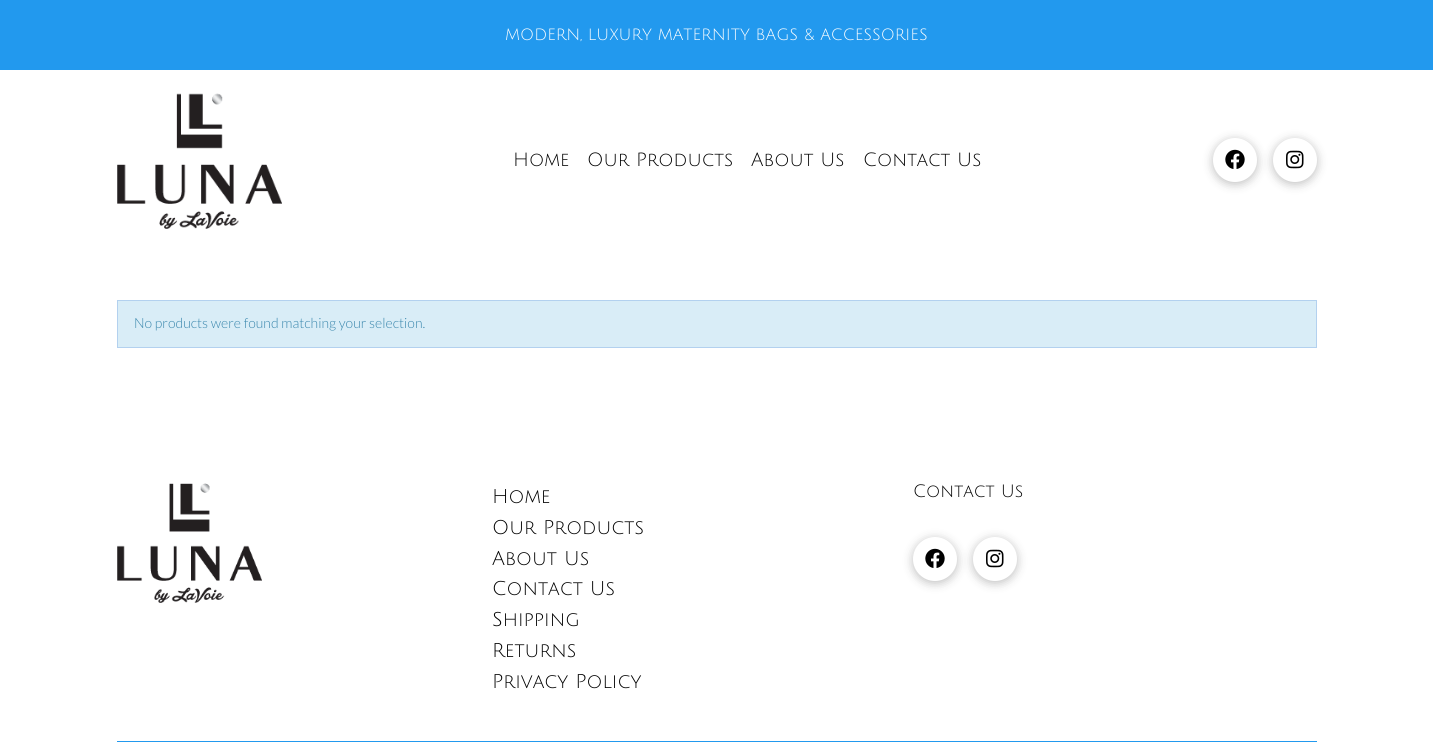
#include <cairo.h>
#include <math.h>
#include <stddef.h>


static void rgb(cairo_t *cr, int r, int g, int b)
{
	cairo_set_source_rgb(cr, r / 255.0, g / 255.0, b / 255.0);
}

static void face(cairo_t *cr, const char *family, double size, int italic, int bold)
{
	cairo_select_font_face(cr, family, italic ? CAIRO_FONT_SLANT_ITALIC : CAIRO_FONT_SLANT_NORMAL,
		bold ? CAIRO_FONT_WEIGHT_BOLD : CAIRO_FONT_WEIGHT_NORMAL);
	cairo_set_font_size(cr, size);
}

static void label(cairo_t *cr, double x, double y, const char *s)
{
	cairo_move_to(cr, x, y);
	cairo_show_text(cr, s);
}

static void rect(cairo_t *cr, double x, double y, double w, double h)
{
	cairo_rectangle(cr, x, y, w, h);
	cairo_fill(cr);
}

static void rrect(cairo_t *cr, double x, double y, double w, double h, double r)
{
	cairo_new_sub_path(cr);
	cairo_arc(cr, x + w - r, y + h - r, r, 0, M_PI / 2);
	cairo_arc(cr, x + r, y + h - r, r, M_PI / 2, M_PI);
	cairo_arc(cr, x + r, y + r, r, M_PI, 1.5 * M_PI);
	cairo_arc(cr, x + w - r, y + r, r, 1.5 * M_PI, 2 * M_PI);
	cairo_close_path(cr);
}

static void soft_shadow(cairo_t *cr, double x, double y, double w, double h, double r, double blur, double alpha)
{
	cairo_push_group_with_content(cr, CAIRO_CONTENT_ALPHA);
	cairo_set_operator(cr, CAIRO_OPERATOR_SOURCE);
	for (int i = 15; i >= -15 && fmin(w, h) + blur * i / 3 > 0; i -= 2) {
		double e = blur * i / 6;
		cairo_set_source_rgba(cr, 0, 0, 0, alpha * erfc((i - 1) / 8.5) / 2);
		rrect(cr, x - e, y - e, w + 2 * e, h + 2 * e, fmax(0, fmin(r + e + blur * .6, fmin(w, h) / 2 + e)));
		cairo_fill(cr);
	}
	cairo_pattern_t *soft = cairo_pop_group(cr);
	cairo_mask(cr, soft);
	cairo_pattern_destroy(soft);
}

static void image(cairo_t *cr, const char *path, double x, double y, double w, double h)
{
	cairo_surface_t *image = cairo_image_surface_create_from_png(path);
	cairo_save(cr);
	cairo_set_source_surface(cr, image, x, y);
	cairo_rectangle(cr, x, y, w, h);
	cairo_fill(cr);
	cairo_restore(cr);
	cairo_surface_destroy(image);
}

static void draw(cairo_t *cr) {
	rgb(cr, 255, 255, 255);
	cairo_paint(cr);
	rgb(cr, 34, 153, 238);
	rect(cr, 0, 0, 1433, 70);
	face(cr, "Julius Sans One", 16, 0, 0);
	rgb(cr, 255, 255, 255);
	label(cr, 505, 40, "MODERN, LUXURY MATERNITY BAGS & ACCESSORIES");
	image(cr, "image0.png", 117, 93, 165, 136);
	face(cr, "Julius Sans One", 18.75, 0, 0);
	rgb(cr, 0, 0, 0);
	label(cr, 513, 166, "Home");
	label(cr, 587, 166, "Our Products");
	label(cr, 751, 166, "About Us");
	label(cr, 863, 166, "Contact Us");
	rgb(cr, 0, 0, 0);
	soft_shadow(cr, 1213, 140, 44, 44, 22, 5, 0.25);
	rgb(cr, 255, 255, 255);
	cairo_arc(cr, 1235, 160, 22, 0, 2 * M_PI);
	cairo_fill(cr);
	image(cr, "image1.png", 1225, 149, 20, 20);
	rgb(cr, 0, 0, 0);
	soft_shadow(cr, 1273, 140, 44, 44, 22, 5, 0.25);
	rgb(cr, 255, 255, 255);
	cairo_arc(cr, 1295, 160, 22, 0, 2 * M_PI);
	cairo_fill(cr);
	image(cr, "image2.png", 1286, 150, 18, 19);
	rgb(cr, 217, 237, 247);
	cairo_rectangle(cr, 117.5, 300.5, 1199, 47);
	cairo_fill_preserve(cr);
	rgb(cr, 179, 209, 239);
	cairo_set_line_width(cr, 1);
	cairo_stroke(cr);
	face(cr, "Lato Light", 14, 0, 0);
	rgb(cr, 58, 135, 173);
	label(cr, 134, 328, "No products were found matching your selection.");
	image(cr, "image3.png", 117, 483, 145, 120);
	face(cr, "Julius Sans One", 19.5, 0, 0);
	rgb(cr, 0, 0, 0);
	label(cr, 492, 503, "Home");
	label(cr, 492, 534, "Our Products");
	label(cr, 492, 565, "About Us");
	label(cr, 492, 595, "Contact Us");
	label(cr, 492, 626, "Shipping");
	label(cr, 492, 657, "Returns");
	label(cr, 492, 688, "Privacy Policy");
	face(cr, "Julius Sans One", 17.5, 0, 0);
	label(cr, 913, 497, "Contact Us");
	rgb(cr, 0, 0, 0);
	soft_shadow(cr, 913, 539, 44, 44, 22, 5, 0.25);
	rgb(cr, 255, 255, 255);
	cairo_arc(cr, 935, 559, 22, 0, 2 * M_PI);
	cairo_fill(cr);
	image(cr, "image1.png", 925, 548, 20, 20);
	rgb(cr, 0, 0, 0);
	soft_shadow(cr, 973, 539, 44, 44, 22, 5, 0.25);
	rgb(cr, 255, 255, 255);
	cairo_arc(cr, 995, 559, 22, 0, 2 * M_PI);
	cairo_fill(cr);
	image(cr, "image2.png", 986, 549, 18, 19);
	rgb(cr, 34, 153, 238);
	rect(cr, 117, 741, 1200, 1);
}

int main(void) {
	cairo_surface_t *surface = cairo_image_surface_create(CAIRO_FORMAT_RGB24, 1433, 742);
	cairo_t *cr = cairo_create(surface);
	cairo_font_options_t *options = cairo_font_options_create();
	cairo_font_options_set_hint_metrics(options, CAIRO_HINT_METRICS_OFF);
	cairo_font_options_set_hint_style(options, CAIRO_HINT_STYLE_NONE);
	cairo_set_font_options(cr, options);
	cairo_set_miter_limit(cr, 4);
	draw(cr);
	cairo_surface_write_to_png(surface, "render.png");
	cairo_font_options_destroy(options);
	cairo_destroy(cr);
	cairo_surface_destroy(surface);
	return 0;
}
